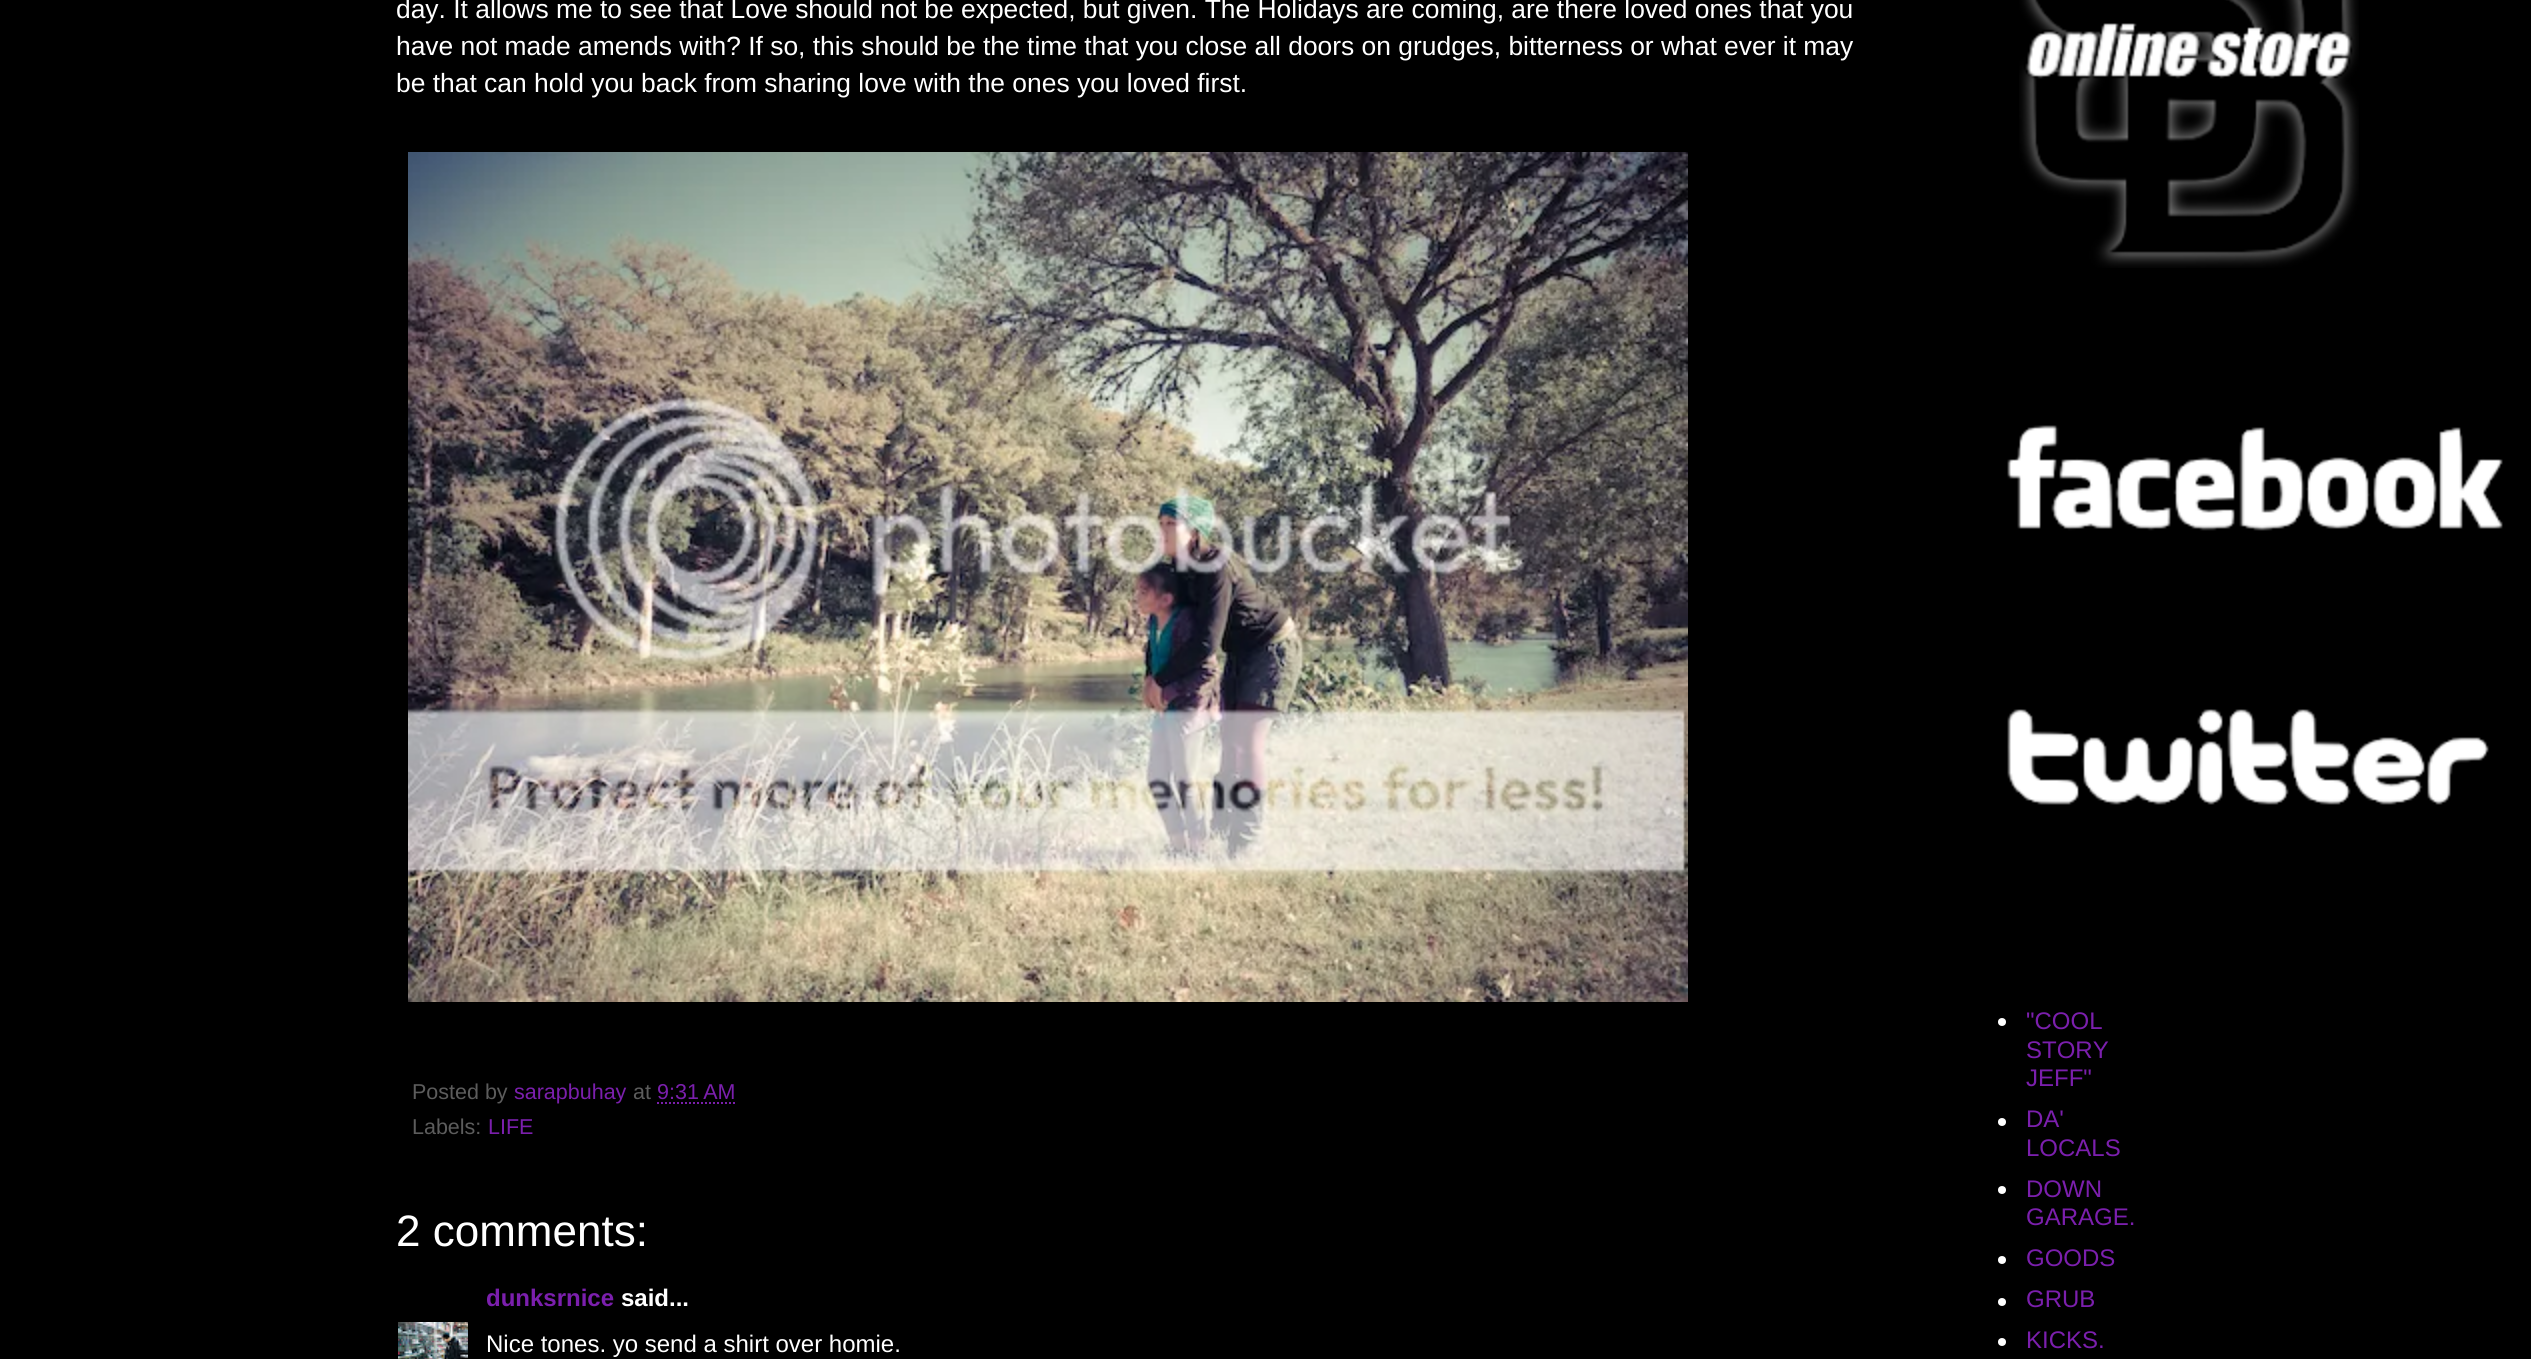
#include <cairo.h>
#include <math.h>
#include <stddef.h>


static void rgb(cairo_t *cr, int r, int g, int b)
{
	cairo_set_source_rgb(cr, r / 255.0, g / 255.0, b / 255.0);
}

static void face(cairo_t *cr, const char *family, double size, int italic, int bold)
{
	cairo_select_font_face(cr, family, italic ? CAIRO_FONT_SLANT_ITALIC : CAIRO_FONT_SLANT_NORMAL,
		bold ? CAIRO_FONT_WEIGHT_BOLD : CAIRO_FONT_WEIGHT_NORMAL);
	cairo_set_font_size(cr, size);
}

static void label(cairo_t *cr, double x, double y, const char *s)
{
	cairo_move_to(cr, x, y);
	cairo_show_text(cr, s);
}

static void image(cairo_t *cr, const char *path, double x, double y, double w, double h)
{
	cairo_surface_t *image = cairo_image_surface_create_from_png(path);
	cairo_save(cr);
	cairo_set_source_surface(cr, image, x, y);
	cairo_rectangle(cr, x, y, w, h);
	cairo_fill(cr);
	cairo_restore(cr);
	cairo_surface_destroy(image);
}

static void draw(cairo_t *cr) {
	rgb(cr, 0, 0, 0);
	cairo_paint(cr);
	face(cr, "Liberation Sans", 26.4, 0, 0);
	rgb(cr, 255, 255, 255);
	label(cr, 396, 18, "day. It allows me to see that Love should not be expected, but given. The Holidays are coming, are there loved ones that you");
	label(cr, 396, 55, "have not made amends with? If so, this should be the time that you close all doors on grudges, bitterness or what ever it may");
	label(cr, 396, 92, "be that can hold you back from sharing love with the ones you loved first.");
	image(cr, "image0.png", 408, 152, 1280, 850);
	face(cr, "Liberation Sans", 21.5, 0, 0);
	rgb(cr, 92, 92, 92);
	label(cr, 412, 1099, "Posted by");
	rgb(cr, 123, 31, 173);
	label(cr, 514, 1099, "sarapbuhay");
	rgb(cr, 92, 92, 92);
	label(cr, 633, 1099, "at");
	rgb(cr, 123, 31, 173);
	label(cr, 657, 1099, "9:31 AM");
	cairo_new_path(cr);
	cairo_move_to(cr, 657, 1103);
	cairo_line_to(cr, 735.5, 1103);
	cairo_set_dash(cr, (double[]){2, 2}, 2, 0);
	cairo_stroke(cr);
	rgb(cr, 92, 92, 92);
	label(cr, 412, 1134, "Labels:");
	rgb(cr, 123, 31, 173);
	label(cr, 488, 1134, "LIFE");
	face(cr, "Liberation Sans", 44, 0, 0);
	rgb(cr, 255, 255, 255);
	label(cr, 396, 1246, "2 comments:");
	face(cr, "Liberation Sans", 24, 0, 1);
	rgb(cr, 123, 31, 173);
	label(cr, 486, 1306, "dunksrnice");
	rgb(cr, 255, 255, 255);
	label(cr, 621, 1306, "said...");
	image(cr, "image1.png", 398, 1322, 70, 37);
	face(cr, "Liberation Sans", 24, 0, 0);
	label(cr, 486, 1352, "Nice tones. yo send a shirt over homie.");
	image(cr, "image2.png", 2019, 0, 340, 268);
	image(cr, "image3.png", 2007, 425, 496, 106);
	image(cr, "image4.png", 2007, 709, 482, 96);
	cairo_arc(cr, 2002, 1022, 4, 0, 2 * M_PI);
	cairo_fill(cr);
	rgb(cr, 123, 31, 173);
	label(cr, 2026, 1029, "\"COOL");
	label(cr, 2026, 1058, "STORY");
	label(cr, 2026, 1086, "JEFF\"");
	rgb(cr, 255, 255, 255);
	cairo_new_path(cr);
	cairo_arc(cr, 2002, 1122, 4, 0, 2 * M_PI);
	cairo_fill(cr);
	rgb(cr, 123, 31, 173);
	label(cr, 2026, 1127, "DA'");
	label(cr, 2026, 1156, "LOCALS");
	rgb(cr, 255, 255, 255);
	cairo_new_path(cr);
	cairo_arc(cr, 2002, 1190, 4, 0, 2 * M_PI);
	cairo_fill(cr);
	rgb(cr, 123, 31, 173);
	label(cr, 2026, 1197, "DOWN");
	label(cr, 2026, 1225, "GARAGE.");
	rgb(cr, 255, 255, 255);
	cairo_new_path(cr);
	cairo_arc(cr, 2002, 1260, 4, 0, 2 * M_PI);
	cairo_fill(cr);
	rgb(cr, 123, 31, 173);
	label(cr, 2026, 1266, "GOODS");
	rgb(cr, 255, 255, 255);
	cairo_new_path(cr);
	cairo_arc(cr, 2002, 1302, 4, 0, 2 * M_PI);
	cairo_fill(cr);
	rgb(cr, 123, 31, 173);
	label(cr, 2026, 1307, "GRUB");
	rgb(cr, 255, 255, 255);
	cairo_new_path(cr);
	cairo_arc(cr, 2002, 1342, 4, 0, 2 * M_PI);
	cairo_fill(cr);
	rgb(cr, 123, 31, 173);
	label(cr, 2026, 1348, "KICKS.");
}

int main(void) {
	cairo_surface_t *surface = cairo_image_surface_create(CAIRO_FORMAT_RGB24, 2531, 1359);
	cairo_t *cr = cairo_create(surface);
	cairo_font_options_t *options = cairo_font_options_create();
	cairo_font_options_set_hint_metrics(options, CAIRO_HINT_METRICS_OFF);
	cairo_font_options_set_hint_style(options, CAIRO_HINT_STYLE_NONE);
	cairo_set_font_options(cr, options);
	cairo_set_miter_limit(cr, 4);
	draw(cr);
	cairo_surface_write_to_png(surface, "render.png");
	cairo_font_options_destroy(options);
	cairo_destroy(cr);
	cairo_surface_destroy(surface);
	return 0;
}
